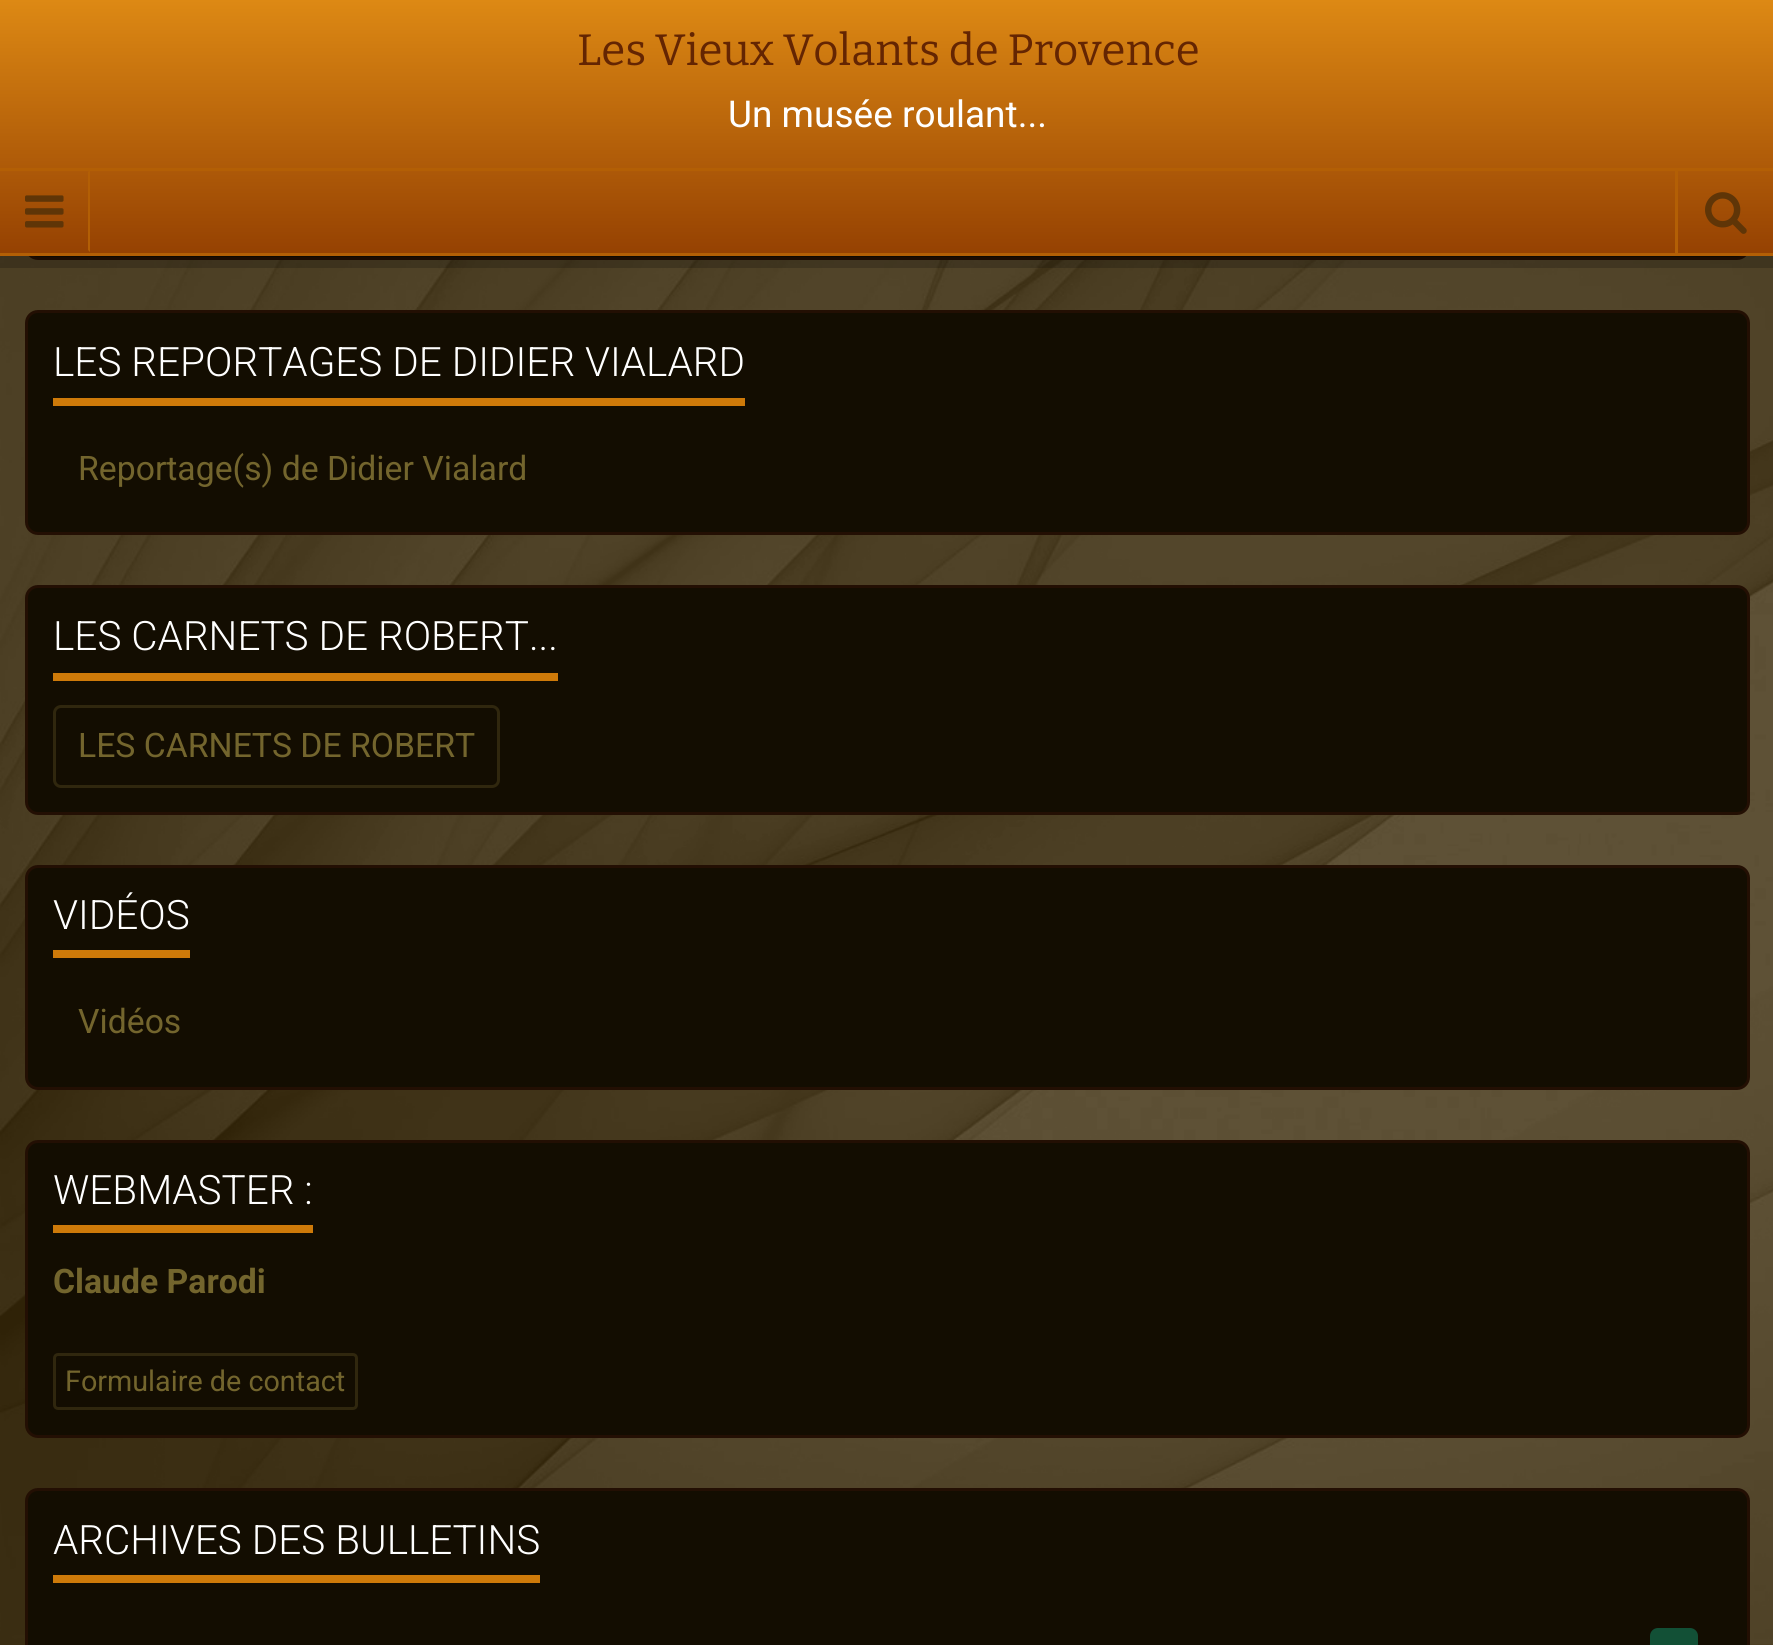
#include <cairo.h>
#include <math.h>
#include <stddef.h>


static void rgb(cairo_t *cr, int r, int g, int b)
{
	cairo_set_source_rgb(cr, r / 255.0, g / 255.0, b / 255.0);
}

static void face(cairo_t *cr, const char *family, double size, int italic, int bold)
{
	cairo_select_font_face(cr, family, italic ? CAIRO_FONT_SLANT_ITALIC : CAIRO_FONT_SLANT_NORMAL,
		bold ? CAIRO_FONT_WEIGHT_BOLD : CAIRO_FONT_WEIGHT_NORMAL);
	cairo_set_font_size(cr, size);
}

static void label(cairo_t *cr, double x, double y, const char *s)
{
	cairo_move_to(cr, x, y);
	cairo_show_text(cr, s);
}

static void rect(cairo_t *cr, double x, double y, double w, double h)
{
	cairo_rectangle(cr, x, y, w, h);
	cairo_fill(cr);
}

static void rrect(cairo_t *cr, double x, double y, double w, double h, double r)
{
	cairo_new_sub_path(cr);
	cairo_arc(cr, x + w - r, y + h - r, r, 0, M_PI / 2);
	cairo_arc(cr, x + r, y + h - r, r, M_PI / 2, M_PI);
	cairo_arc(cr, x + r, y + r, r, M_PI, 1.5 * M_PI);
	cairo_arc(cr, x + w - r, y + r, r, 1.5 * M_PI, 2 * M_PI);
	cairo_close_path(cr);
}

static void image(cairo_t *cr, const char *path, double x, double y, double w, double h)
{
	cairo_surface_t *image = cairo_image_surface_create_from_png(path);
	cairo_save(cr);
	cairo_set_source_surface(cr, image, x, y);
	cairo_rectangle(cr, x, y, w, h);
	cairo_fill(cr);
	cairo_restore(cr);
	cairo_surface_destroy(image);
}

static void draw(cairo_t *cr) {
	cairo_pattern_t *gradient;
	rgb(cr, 56, 40, 6);
	cairo_paint(cr);
	image(cr, "image0.png", 0, 256, 1773, 1389);
	rgb(cr, 19, 13, 1);
	rrect(cr, 26.5, 34.5, 1722, 224, 11.5);
	cairo_fill_preserve(cr);
	rgb(cr, 35, 15, 3);
	cairo_set_line_width(cr, 3);
	cairo_stroke(cr);
	cairo_set_source_rgba(cr, 0, 0, 0, 0.2);
	rect(cr, 0, 256, 1773, 12);
	gradient = cairo_pattern_create_linear(888, 0, 888, 255);
	cairo_pattern_add_color_stop_rgba(gradient, 0, 0.867, 0.537, 0.078, 1);
	cairo_pattern_add_color_stop_rgba(gradient, 1, 0.584, 0.255, 0.008, 1);
	cairo_set_source(cr, gradient);
	cairo_pattern_destroy(gradient);
	rect(cr, 0, 0, 1773, 253);
	face(cr, "Bitter Thin", 43.9, 0, 0);
	rgb(cr, 100, 37, 2);
	label(cr, 577, 65, "Les Vieux Volants de Provence");
	face(cr, "Roboto", 37, 0, 0);
	rgb(cr, 255, 255, 255);
	label(cr, 728, 127, "Un musée roulant...");
	rgb(cr, 179, 95, 5);
	rect(cr, 0, 168, 1773, 3);
	rect(cr, 0, 253, 1773, 3);
	cairo_new_path(cr);
	cairo_move_to(cr, 90, 170);
	cairo_line_to(cr, 90, 252);
	cairo_line_to(cr, 88, 250);
	cairo_line_to(cr, 88, 172);
	cairo_close_path(cr);
	cairo_fill(cr);
	image(cr, "image1.png", 25, 195, 39, 33);
	rect(cr, 1675, 170, 3, 83);
	image(cr, "image2.png", 1705, 192, 42, 42);
	rgb(cr, 19, 13, 1);
	rrect(cr, 26.5, 311.5, 1722, 222, 11.5);
	cairo_fill_preserve(cr);
	rgb(cr, 35, 15, 3);
	cairo_stroke(cr);
	rgb(cr, 206, 122, 9);
	rect(cr, 53, 398, 692, 8);
	face(cr, "Roboto Light", 40.5, 0, 0);
	rgb(cr, 255, 255, 255);
	label(cr, 53, 376, "LES REPORTAGES DE DIDIER VIALARD");
	face(cr, "Roboto", 33.75, 0, 0);
	rgb(cr, 115, 101, 45);
	label(cr, 78, 480, "Reportage(s) de Didier Vialard");
	rgb(cr, 19, 13, 1);
	rrect(cr, 26.5, 586.5, 1722, 227, 11.5);
	cairo_fill_preserve(cr);
	rgb(cr, 35, 15, 3);
	cairo_stroke(cr);
	rgb(cr, 206, 122, 9);
	rect(cr, 53, 673, 505, 8);
	face(cr, "Roboto Light", 40.5, 0, 0);
	rgb(cr, 255, 255, 255);
	label(cr, 53, 650, "LES CARNETS DE ROBERT...");
	rrect(cr, 54.5, 706.5, 444, 80, 6.5);
	rgb(cr, 48, 39, 14);
	cairo_stroke(cr);
	face(cr, "Roboto", 33.75, 0, 0);
	rgb(cr, 115, 101, 45);
	label(cr, 78, 757, "LES CARNETS DE ROBERT");
	rgb(cr, 19, 13, 1);
	rrect(cr, 26.5, 866.5, 1722, 222, 11.5);
	cairo_fill_preserve(cr);
	rgb(cr, 35, 15, 3);
	cairo_stroke(cr);
	rgb(cr, 206, 122, 9);
	rect(cr, 53, 950, 137, 8);
	face(cr, "Roboto Light", 40.5, 0, 0);
	rgb(cr, 255, 255, 255);
	label(cr, 53, 929, "VIDÉOS");
	face(cr, "Roboto", 33.75, 0, 0);
	rgb(cr, 115, 101, 45);
	label(cr, 78, 1033, "Vidéos");
	rgb(cr, 19, 13, 1);
	rrect(cr, 26.5, 1141.5, 1722, 295, 11.5);
	cairo_fill_preserve(cr);
	rgb(cr, 35, 15, 3);
	cairo_stroke(cr);
	rgb(cr, 206, 122, 9);
	rect(cr, 53, 1225, 260, 8);
	face(cr, "Roboto Light", 40.5, 0, 0);
	rgb(cr, 255, 255, 255);
	label(cr, 53, 1204, "WEBMASTER :");
	face(cr, "Roboto", 33.75, 0, 1);
	rgb(cr, 115, 101, 45);
	label(cr, 53, 1293, "Claude Parodi");
	rrect(cr, 54.5, 1354.5, 302, 54, 3.5);
	rgb(cr, 48, 39, 14);
	cairo_stroke(cr);
	face(cr, "Roboto", 28.75, 0, 0);
	rgb(cr, 115, 101, 45);
	label(cr, 65, 1391, "Formulaire de contact");
	rgb(cr, 19, 13, 1);
	rrect(cr, 26.5, 1489.5, 1722, 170, 11.5);
	cairo_fill_preserve(cr);
	rgb(cr, 35, 15, 3);
	cairo_stroke(cr);
	rgb(cr, 206, 122, 9);
	rect(cr, 53, 1575, 487, 8);
	face(cr, "Roboto Light", 40.5, 0, 0);
	rgb(cr, 255, 255, 255);
	label(cr, 53, 1554, "ARCHIVES DES BULLETINS");
	rgb(cr, 18, 80, 54);
	rrect(cr, 1650, 1628, 48, 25, 8);
	cairo_fill(cr);
}

int main(void) {
	cairo_surface_t *surface = cairo_image_surface_create(CAIRO_FORMAT_RGB24, 1773, 1645);
	cairo_t *cr = cairo_create(surface);
	cairo_font_options_t *options = cairo_font_options_create();
	cairo_font_options_set_hint_metrics(options, CAIRO_HINT_METRICS_OFF);
	cairo_font_options_set_hint_style(options, CAIRO_HINT_STYLE_NONE);
	cairo_set_font_options(cr, options);
	cairo_set_miter_limit(cr, 4);
	draw(cr);
	cairo_surface_write_to_png(surface, "render.png");
	cairo_font_options_destroy(options);
	cairo_destroy(cr);
	cairo_surface_destroy(surface);
	return 0;
}
